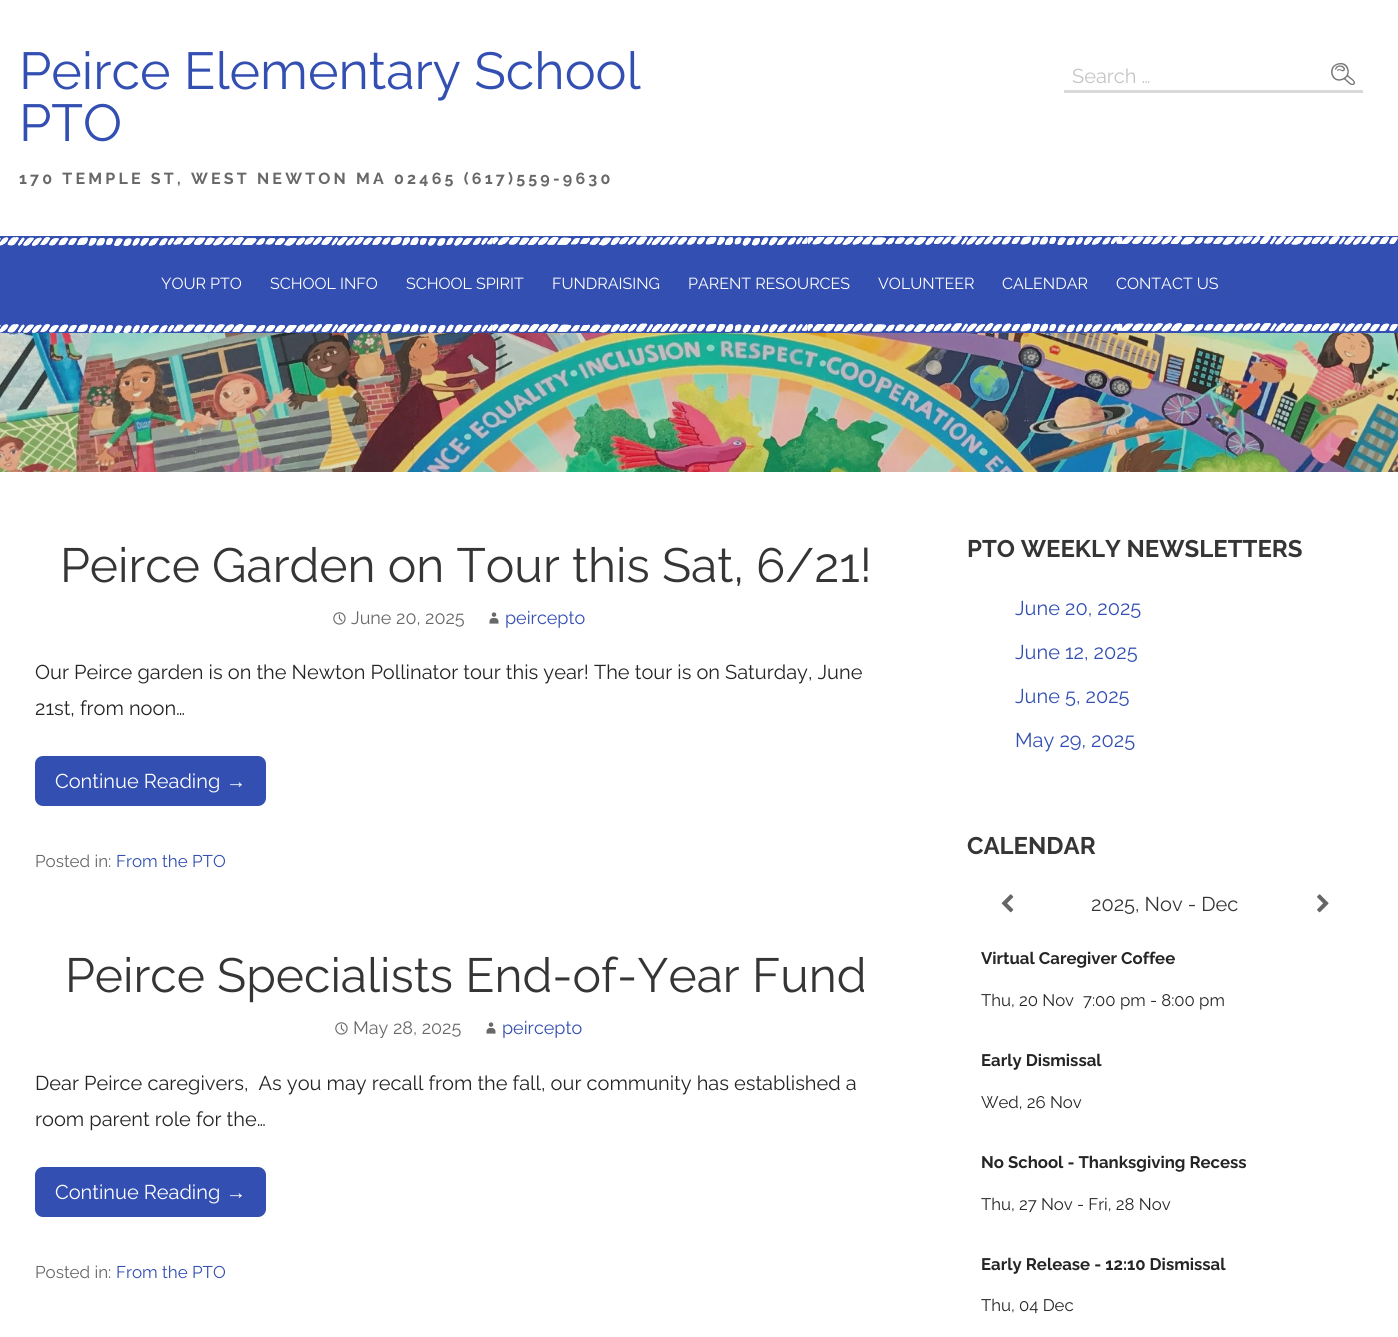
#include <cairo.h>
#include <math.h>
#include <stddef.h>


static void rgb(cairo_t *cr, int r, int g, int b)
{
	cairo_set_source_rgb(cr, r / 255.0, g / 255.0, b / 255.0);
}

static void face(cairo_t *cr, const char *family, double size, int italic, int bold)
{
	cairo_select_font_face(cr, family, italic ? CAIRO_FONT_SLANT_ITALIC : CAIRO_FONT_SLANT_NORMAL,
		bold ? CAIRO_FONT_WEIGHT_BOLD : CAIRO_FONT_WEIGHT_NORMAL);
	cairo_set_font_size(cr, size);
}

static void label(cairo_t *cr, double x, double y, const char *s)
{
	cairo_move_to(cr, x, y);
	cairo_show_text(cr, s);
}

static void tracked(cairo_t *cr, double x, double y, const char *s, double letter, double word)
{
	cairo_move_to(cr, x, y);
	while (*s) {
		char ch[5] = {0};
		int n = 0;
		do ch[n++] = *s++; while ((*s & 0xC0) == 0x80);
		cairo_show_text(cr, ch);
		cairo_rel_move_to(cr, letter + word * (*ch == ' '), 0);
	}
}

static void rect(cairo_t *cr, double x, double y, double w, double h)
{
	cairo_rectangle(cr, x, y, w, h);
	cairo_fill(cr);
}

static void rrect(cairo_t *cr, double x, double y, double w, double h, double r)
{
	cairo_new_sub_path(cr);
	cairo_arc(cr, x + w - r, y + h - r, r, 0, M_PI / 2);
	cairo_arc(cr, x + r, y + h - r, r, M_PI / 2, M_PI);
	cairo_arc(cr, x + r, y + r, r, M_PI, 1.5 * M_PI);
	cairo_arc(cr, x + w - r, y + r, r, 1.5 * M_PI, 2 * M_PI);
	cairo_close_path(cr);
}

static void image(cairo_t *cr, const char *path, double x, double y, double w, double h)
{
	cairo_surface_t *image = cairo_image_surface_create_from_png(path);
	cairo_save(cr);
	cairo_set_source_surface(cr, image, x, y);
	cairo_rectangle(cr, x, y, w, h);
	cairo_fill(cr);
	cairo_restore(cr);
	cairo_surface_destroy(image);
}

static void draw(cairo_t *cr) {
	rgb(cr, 255, 255, 255);
	cairo_paint(cr);
	face(cr, "Raleway", 52, 0, 0);
	rgb(cr, 51, 79, 178);
	label(cr, 19, 89, "Peirce Elementary School");
	label(cr, 19, 141, "PTO");
	face(cr, "Raleway", 16, 0, 1);
	rgb(cr, 104, 104, 104);
	tracked(cr, 19, 184, "170 TEMPLE ST, WEST NEWTON MA 02465 (617)559-9630", 3.2, 0);
	rgb(cr, 217, 217, 217);
	rect(cr, 1064, 90, 299, 3);
	face(cr, "Raleway", 20, 0, 0);
	rgb(cr, 196, 196, 196);
	label(cr, 1072, 83, "Search …");
	image(cr, "image0.png", 1331, 63, 24, 22);
	rgb(cr, 51, 79, 178);
	rect(cr, 0, 236, 1398, 97);
	image(cr, "image1.png", 0, 236, 1398, 10);
	face(cr, "Raleway", 16, 0, 0);
	rgb(cr, 255, 255, 255);
	label(cr, 161, 289, "YOUR PTO");
	label(cr, 270, 289, "SCHOOL INFO");
	label(cr, 406, 289, "SCHOOL SPIRIT");
	label(cr, 552, 289, "FUNDRAISING");
	label(cr, 688, 289, "PARENT RESOURCES");
	label(cr, 878, 289, "VOLUNTEER");
	label(cr, 1002, 289, "CALENDAR");
	label(cr, 1116, 289, "CONTACT US");
	image(cr, "image1.png", 0, 323, 1398, 10);
	image(cr, "image2.png", 0, 333, 1398, 139);
	face(cr, "Raleway", 48, 0, 0);
	rgb(cr, 53, 53, 53);
	label(cr, 60, 582, "Peirce Garden on Tour this Sat, 6/21!");
	image(cr, "image3.png", 333, 612, 13, 13);
	face(cr, "Raleway", 18, 0, 0);
	rgb(cr, 104, 104, 104);
	label(cr, 351, 624, "June 20, 2025");
	image(cr, "image4.png", 489, 612, 10, 12);
	rgb(cr, 51, 79, 178);
	label(cr, 505, 624, "peircepto");
	face(cr, "Raleway", 20, 0, 0);
	rgb(cr, 37, 37, 37);
	label(cr, 35, 679, "Our Peirce garden is on the Newton Pollinator tour this year! The tour is on Saturday, June");
	label(cr, 35, 715, "21st, from noon…");
	rgb(cr, 51, 79, 178);
	rrect(cr, 35, 756, 231, 50, 8);
	cairo_fill(cr);
	rgb(cr, 255, 255, 255);
	label(cr, 55, 788, "Continue Reading");
	face(cr, "Liberation Sans", 20, 0, 0);
	label(cr, 226, 788, "→");
	face(cr, "Raleway", 17, 0, 0);
	rgb(cr, 104, 104, 104);
	label(cr, 35, 867, "Posted in:");
	rgb(cr, 51, 79, 178);
	label(cr, 116, 867, "From the PTO");
	face(cr, "Raleway", 48, 0, 0);
	rgb(cr, 53, 53, 53);
	label(cr, 65, 992, "Peirce Specialists End-of-Year Fund");
	image(cr, "image3.png", 335, 1022, 13, 13);
	face(cr, "Raleway", 18, 0, 0);
	rgb(cr, 104, 104, 104);
	label(cr, 353, 1034, "May 28, 2025");
	image(cr, "image4.png", 486, 1022, 10, 12);
	rgb(cr, 51, 79, 178);
	label(cr, 502, 1034, "peircepto");
	face(cr, "Raleway", 20, 0, 0);
	rgb(cr, 37, 37, 37);
	label(cr, 35, 1090, "Dear Peirce caregivers,  As you may recall from the fall, our community has established a");
	label(cr, 35, 1126, "room parent role for the…");
	rgb(cr, 51, 79, 178);
	rrect(cr, 35, 1167, 231, 50, 8);
	cairo_fill(cr);
	rgb(cr, 255, 255, 255);
	label(cr, 55, 1199, "Continue Reading");
	face(cr, "Liberation Sans", 20, 0, 0);
	label(cr, 226, 1199, "→");
	face(cr, "Raleway", 17, 0, 0);
	rgb(cr, 104, 104, 104);
	label(cr, 35, 1278, "Posted in:");
	rgb(cr, 51, 79, 178);
	label(cr, 116, 1278, "From the PTO");
	face(cr, "Raleway", 24, 0, 1);
	rgb(cr, 53, 53, 53);
	label(cr, 967, 557, "PTO WEEKLY NEWSLETTERS");
	face(cr, "Raleway", 20, 0, 0);
	rgb(cr, 51, 79, 178);
	label(cr, 1015, 615, "June 20, 2025");
	label(cr, 1015, 659, "June 12, 2025");
	label(cr, 1015, 703, "June 5, 2025");
	label(cr, 1015, 747, "May 29, 2025");
	face(cr, "Raleway", 24, 0, 1);
	rgb(cr, 53, 53, 53);
	label(cr, 967, 854, "CALENDAR");
	image(cr, "image5.png", 1001, 894, 13, 19);
	face(cr, "Raleway", 20, 0, 0);
	label(cr, 1091, 911, "2025, Nov - Dec");
	image(cr, "image6.png", 1317, 894, 12, 19);
	face(cr, "Raleway", 16.75, 0, 1);
	rgb(cr, 37, 37, 37);
	label(cr, 981, 964, "Virtual Caregiver Coffee");
	face(cr, "Raleway", 16.75, 0, 0);
	label(cr, 981, 1006, "Thu, 20 Nov");
	label(cr, 1083, 1006, "7:00 pm - 8:00 pm");
	face(cr, "Raleway", 16.75, 0, 1);
	label(cr, 981, 1066, "Early Dismissal");
	face(cr, "Raleway", 16.75, 0, 0);
	label(cr, 981, 1108, "Wed, 26 Nov");
	face(cr, "Raleway", 16.75, 0, 1);
	label(cr, 981, 1168, "No School - Thanksgiving Recess");
	face(cr, "Raleway", 16.75, 0, 0);
	label(cr, 981, 1210, "Thu, 27 Nov - Fri, 28 Nov");
	face(cr, "Raleway", 16.75, 0, 1);
	label(cr, 981, 1270, "Early Release - 12:10 Dismissal");
	face(cr, "Raleway", 16.75, 0, 0);
	label(cr, 981, 1311, "Thu, 04 Dec");
}

int main(void) {
	cairo_surface_t *surface = cairo_image_surface_create(CAIRO_FORMAT_RGB24, 1398, 1337);
	cairo_t *cr = cairo_create(surface);
	cairo_font_options_t *options = cairo_font_options_create();
	cairo_font_options_set_hint_metrics(options, CAIRO_HINT_METRICS_OFF);
	cairo_font_options_set_hint_style(options, CAIRO_HINT_STYLE_NONE);
	cairo_set_font_options(cr, options);
	cairo_set_miter_limit(cr, 4);
	draw(cr);
	cairo_surface_write_to_png(surface, "render.png");
	cairo_font_options_destroy(options);
	cairo_destroy(cr);
	cairo_surface_destroy(surface);
	return 0;
}
